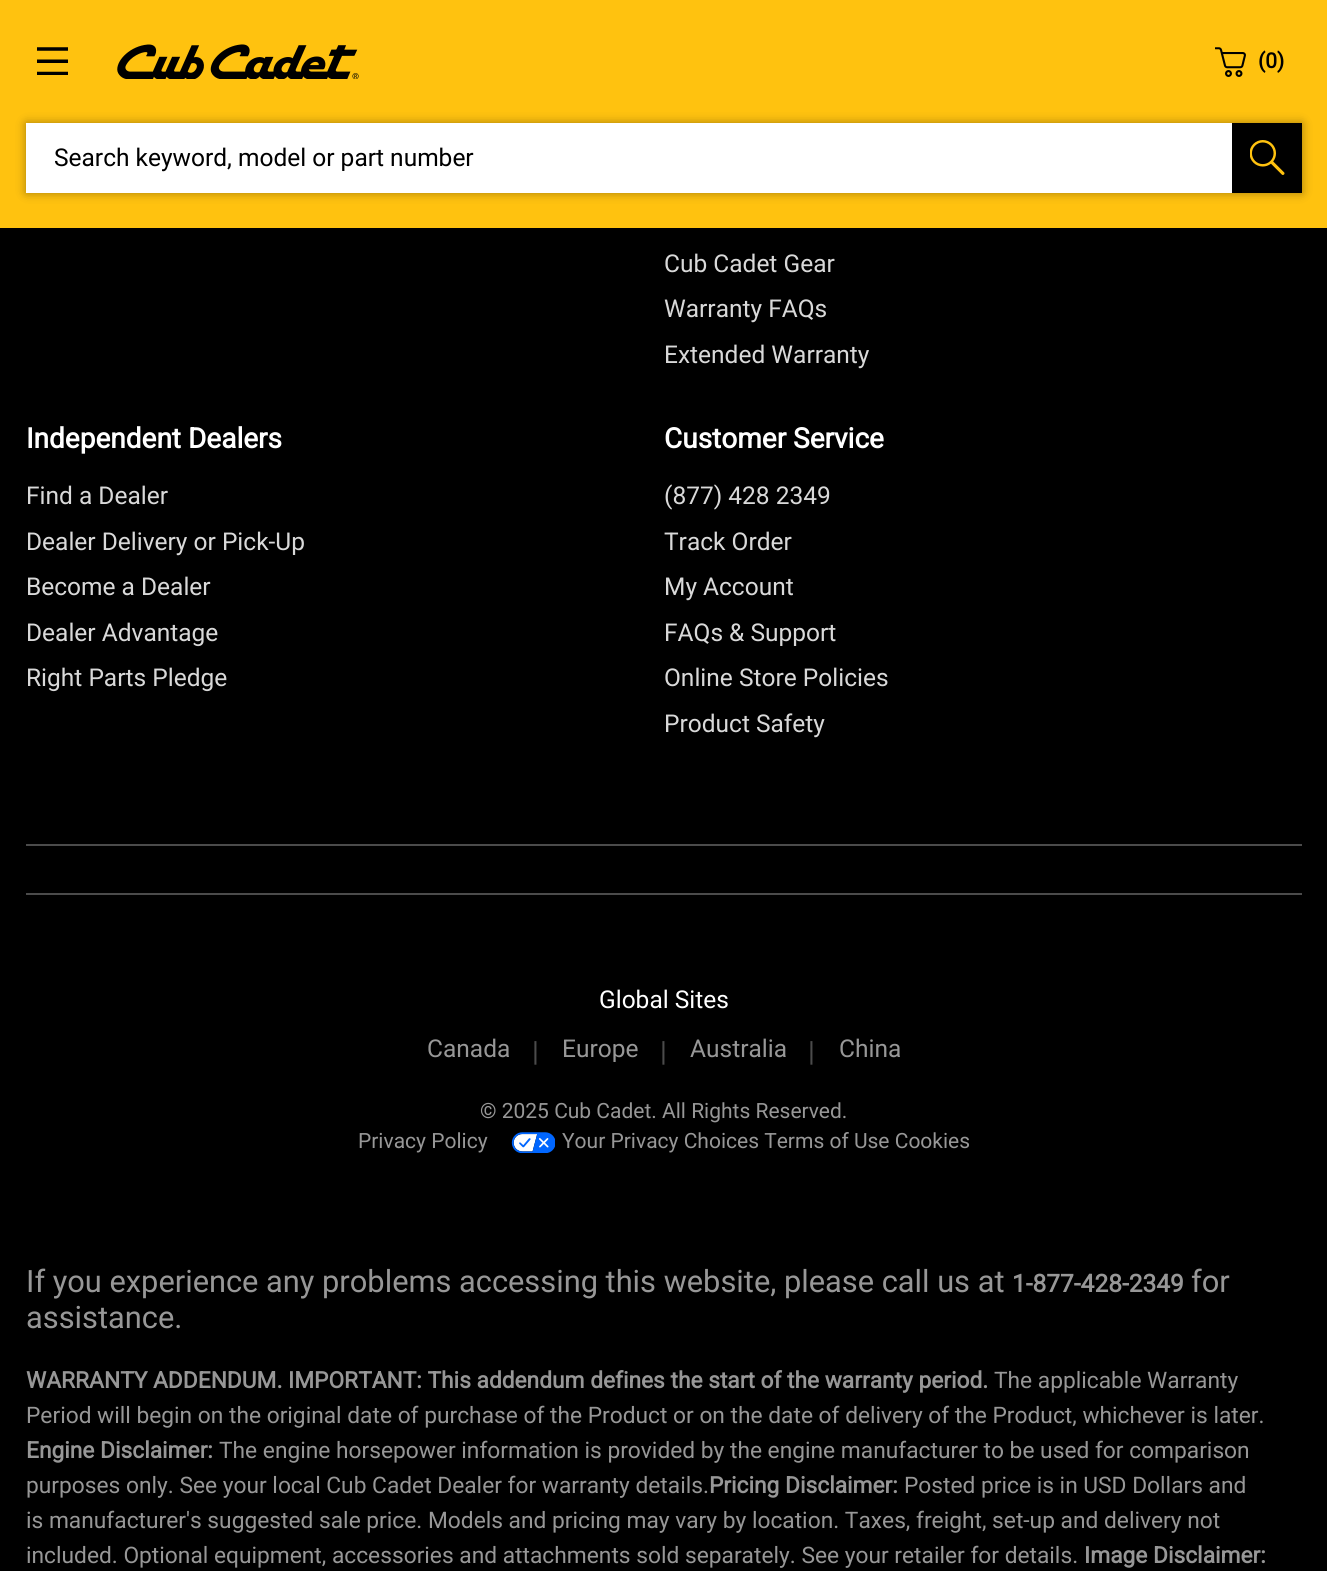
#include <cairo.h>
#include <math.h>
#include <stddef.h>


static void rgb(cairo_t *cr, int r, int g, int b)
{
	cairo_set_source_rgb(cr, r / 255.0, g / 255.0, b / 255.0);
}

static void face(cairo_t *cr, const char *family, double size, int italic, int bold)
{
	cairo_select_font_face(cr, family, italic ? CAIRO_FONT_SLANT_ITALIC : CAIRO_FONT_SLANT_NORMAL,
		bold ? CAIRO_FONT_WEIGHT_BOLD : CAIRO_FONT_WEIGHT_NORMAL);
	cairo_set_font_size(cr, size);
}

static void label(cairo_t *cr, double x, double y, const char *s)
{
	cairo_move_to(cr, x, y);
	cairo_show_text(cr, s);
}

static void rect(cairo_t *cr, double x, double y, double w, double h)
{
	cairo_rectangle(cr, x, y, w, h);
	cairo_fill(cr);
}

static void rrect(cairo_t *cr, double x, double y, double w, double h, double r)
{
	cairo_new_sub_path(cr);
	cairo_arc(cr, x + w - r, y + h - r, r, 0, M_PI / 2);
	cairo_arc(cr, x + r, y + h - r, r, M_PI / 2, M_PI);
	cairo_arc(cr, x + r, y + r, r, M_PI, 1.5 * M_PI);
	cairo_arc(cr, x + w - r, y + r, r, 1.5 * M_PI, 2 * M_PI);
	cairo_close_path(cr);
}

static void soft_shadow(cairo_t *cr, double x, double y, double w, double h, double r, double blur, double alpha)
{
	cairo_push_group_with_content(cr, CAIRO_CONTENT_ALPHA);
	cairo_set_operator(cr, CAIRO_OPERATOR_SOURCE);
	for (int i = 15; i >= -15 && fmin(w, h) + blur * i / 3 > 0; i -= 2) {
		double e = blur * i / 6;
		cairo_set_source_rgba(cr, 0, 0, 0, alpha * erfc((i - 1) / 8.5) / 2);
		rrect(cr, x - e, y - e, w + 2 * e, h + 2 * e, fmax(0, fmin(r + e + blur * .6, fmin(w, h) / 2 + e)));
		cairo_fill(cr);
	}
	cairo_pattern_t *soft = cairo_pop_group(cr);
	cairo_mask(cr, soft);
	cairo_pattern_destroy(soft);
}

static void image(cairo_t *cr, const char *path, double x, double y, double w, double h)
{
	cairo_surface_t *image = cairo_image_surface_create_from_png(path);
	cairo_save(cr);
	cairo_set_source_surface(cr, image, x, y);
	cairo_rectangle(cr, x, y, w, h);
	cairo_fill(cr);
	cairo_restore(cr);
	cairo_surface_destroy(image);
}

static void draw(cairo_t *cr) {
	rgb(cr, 0, 0, 0);
	cairo_paint(cr);
	rgb(cr, 255, 194, 15);
	rect(cr, 0, 0, 1327, 228);
	image(cr, "image0.png", 37, 47, 31, 28);
	image(cr, "image1.png", 117, 44, 242, 35);
	image(cr, "image2.png", 1215, 47, 31, 30);
	face(cr, "Roboto", 21, 0, 1);
	rgb(cr, 0, 0, 0);
	label(cr, 1258, 68, "(0)");
	rgb(cr, 0, 0, 0);
	soft_shadow(cr, 26, 123, 1276, 70, 0, 5, 0.35);
	rgb(cr, 255, 255, 255);
	rect(cr, 26, 123, 1206, 70);
	face(cr, "Roboto", 24.5, 0, 0);
	rgb(cr, 0, 0, 0);
	label(cr, 54, 166, "Search keyword, model or part number");
	rect(cr, 1232, 123, 70, 70);
	image(cr, "image3.png", 1250, 140, 35, 35);
	rgb(cr, 217, 217, 217);
	label(cr, 664, 272, "Cub Cadet Gear");
	label(cr, 664, 317, "Warranty FAQs");
	label(cr, 664, 363, "Extended Warranty");
	face(cr, "Roboto", 28, 0, 1);
	rgb(cr, 255, 255, 255);
	label(cr, 26, 448, "Independent Dealers");
	face(cr, "Roboto", 24.5, 0, 0);
	rgb(cr, 217, 217, 217);
	label(cr, 26, 504, "Find a Dealer");
	label(cr, 26, 550, "Dealer Delivery or Pick-Up");
	label(cr, 26, 595, "Become a Dealer");
	label(cr, 26, 641, "Dealer Advantage");
	label(cr, 26, 686, "Right Parts Pledge");
	face(cr, "Roboto", 28, 0, 1);
	rgb(cr, 255, 255, 255);
	label(cr, 664, 448, "Customer Service");
	face(cr, "Roboto", 24.5, 0, 0);
	rgb(cr, 217, 217, 217);
	label(cr, 664, 504, "(877) 428 2349");
	label(cr, 664, 550, "Track Order");
	label(cr, 664, 595, "My Account");
	label(cr, 664, 641, "FAQs & Support");
	label(cr, 664, 686, "Online Store Policies");
	label(cr, 664, 732, "Product Safety");
	rgb(cr, 75, 75, 75);
	rect(cr, 26, 844, 1276, 2);
	rect(cr, 26, 893, 1276, 2);
	rgb(cr, 255, 255, 255);
	label(cr, 599, 1008, "Global Sites");
	rgb(cr, 151, 151, 151);
	label(cr, 427, 1057, "Canada");
	face(cr, "Roboto", 28, 0, 0);
	rgb(cr, 75, 75, 75);
	label(cr, 532, 1061, "|");
	face(cr, "Roboto", 24.5, 0, 0);
	rgb(cr, 151, 151, 151);
	label(cr, 562, 1057, "Europe");
	face(cr, "Roboto", 28, 0, 0);
	rgb(cr, 75, 75, 75);
	label(cr, 660, 1061, "|");
	face(cr, "Roboto", 24.5, 0, 0);
	rgb(cr, 151, 151, 151);
	label(cr, 690, 1057, "Australia");
	face(cr, "Roboto", 28, 0, 0);
	rgb(cr, 75, 75, 75);
	label(cr, 808, 1061, "|");
	face(cr, "Roboto", 24.5, 0, 0);
	rgb(cr, 151, 151, 151);
	label(cr, 839, 1057, "China");
	face(cr, "Roboto", 21, 0, 0);
	label(cr, 480, 1118, "© 2025 Cub Cadet. All Rights Reserved.");
	label(cr, 358, 1148, "Privacy Policy");
	image(cr, "image4.png", 511, 1132, 44, 21);
	label(cr, 562, 1148, "Your Privacy Choices Terms of Use Cookies");
	face(cr, "Roboto", 30.8, 0, 0);
	label(cr, 26, 1292, "If you experience any problems accessing this website, please call us at");
	face(cr, "Roboto", 24.5, 0, 1);
	label(cr, 1012, 1292, "1-877-428-2349");
	face(cr, "Roboto", 30.8, 0, 0);
	label(cr, 1191, 1292, "for");
	label(cr, 26, 1328, "assistance.");
	face(cr, "Roboto", 22.75, 0, 1);
	label(cr, 26, 1388, "WARRANTY ADDENDUM. IMPORTANT: This addendum defines the start of the warranty period.");
	face(cr, "Roboto", 22.75, 0, 0);
	label(cr, 994, 1388, "The applicable Warranty");
	label(cr, 26, 1423, "Period will begin on the original date of purchase of the Product or on the date of delivery of the Product, whichever is later.");
	face(cr, "Roboto", 22.75, 0, 1);
	label(cr, 26, 1458, "Engine Disclaimer:");
	face(cr, "Roboto", 22.75, 0, 0);
	label(cr, 219, 1458, "The engine horsepower information is provided by the engine manufacturer to be used for comparison");
	label(cr, 26, 1493, "purposes only. See your local Cub Cadet Dealer for warranty details.");
	face(cr, "Roboto", 22.75, 0, 1);
	label(cr, 709, 1493, "Pricing Disclaimer:");
	face(cr, "Roboto", 22.75, 0, 0);
	label(cr, 904, 1493, "Posted price is in USD Dollars and");
	label(cr, 26, 1528, "is manufacturer's suggested sale price. Models and pricing may vary by location. Taxes, freight, set-up and delivery not");
	label(cr, 26, 1563, "included. Optional equipment, accessories and attachments sold separately. See your retailer for details.");
	face(cr, "Roboto", 22.75, 0, 1);
	label(cr, 1084, 1563, "Image Disclaimer:");
}

int main(void) {
	cairo_surface_t *surface = cairo_image_surface_create(CAIRO_FORMAT_RGB24, 1327, 1571);
	cairo_t *cr = cairo_create(surface);
	cairo_font_options_t *options = cairo_font_options_create();
	cairo_font_options_set_hint_metrics(options, CAIRO_HINT_METRICS_OFF);
	cairo_font_options_set_hint_style(options, CAIRO_HINT_STYLE_NONE);
	cairo_set_font_options(cr, options);
	cairo_set_miter_limit(cr, 4);
	draw(cr);
	cairo_surface_write_to_png(surface, "render.png");
	cairo_font_options_destroy(options);
	cairo_destroy(cr);
	cairo_surface_destroy(surface);
	return 0;
}
